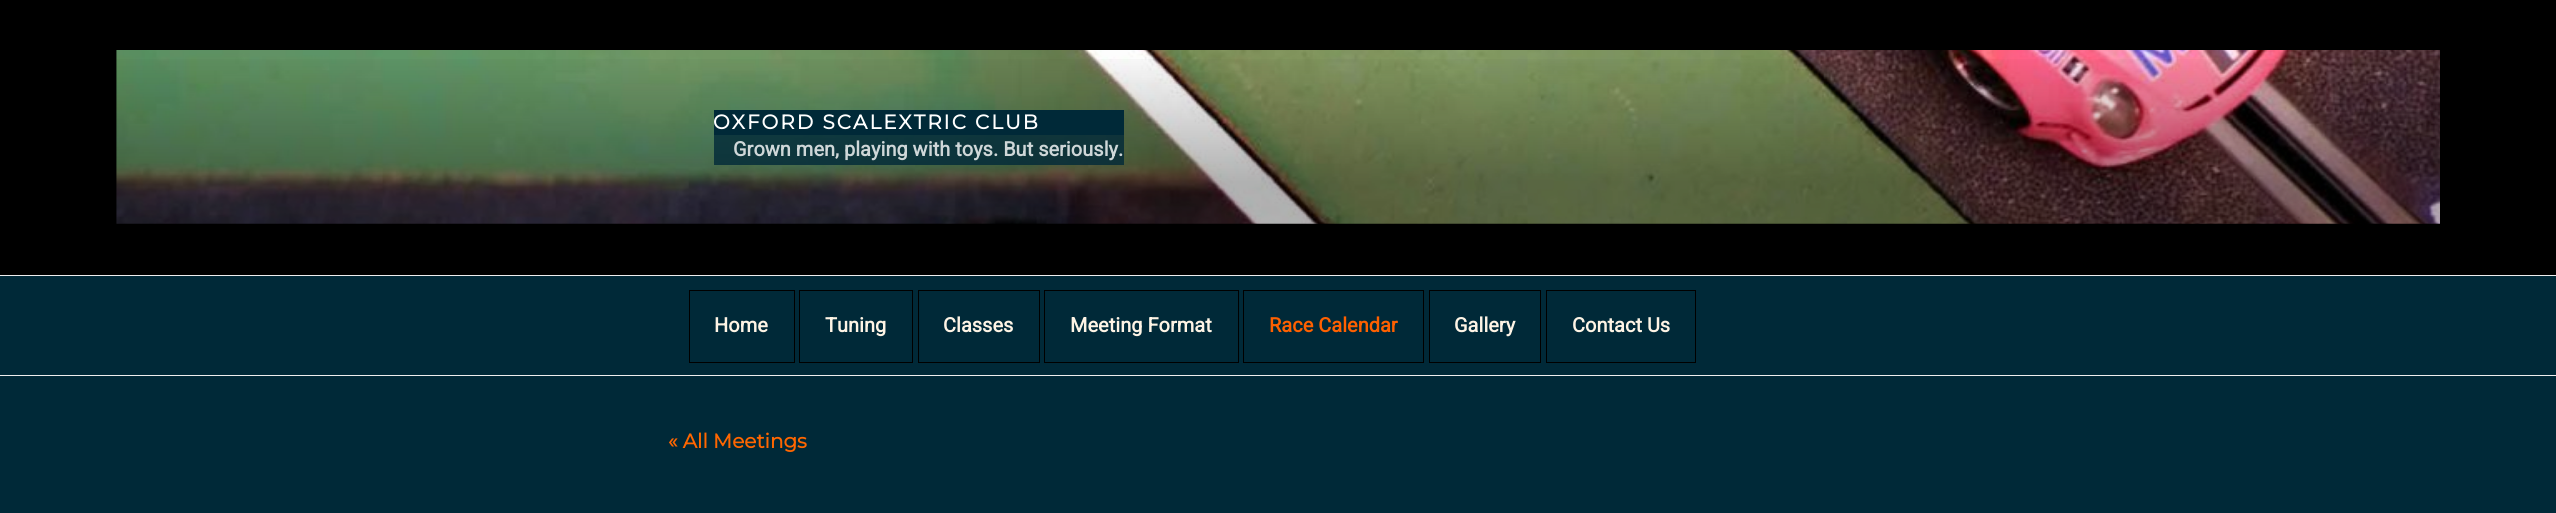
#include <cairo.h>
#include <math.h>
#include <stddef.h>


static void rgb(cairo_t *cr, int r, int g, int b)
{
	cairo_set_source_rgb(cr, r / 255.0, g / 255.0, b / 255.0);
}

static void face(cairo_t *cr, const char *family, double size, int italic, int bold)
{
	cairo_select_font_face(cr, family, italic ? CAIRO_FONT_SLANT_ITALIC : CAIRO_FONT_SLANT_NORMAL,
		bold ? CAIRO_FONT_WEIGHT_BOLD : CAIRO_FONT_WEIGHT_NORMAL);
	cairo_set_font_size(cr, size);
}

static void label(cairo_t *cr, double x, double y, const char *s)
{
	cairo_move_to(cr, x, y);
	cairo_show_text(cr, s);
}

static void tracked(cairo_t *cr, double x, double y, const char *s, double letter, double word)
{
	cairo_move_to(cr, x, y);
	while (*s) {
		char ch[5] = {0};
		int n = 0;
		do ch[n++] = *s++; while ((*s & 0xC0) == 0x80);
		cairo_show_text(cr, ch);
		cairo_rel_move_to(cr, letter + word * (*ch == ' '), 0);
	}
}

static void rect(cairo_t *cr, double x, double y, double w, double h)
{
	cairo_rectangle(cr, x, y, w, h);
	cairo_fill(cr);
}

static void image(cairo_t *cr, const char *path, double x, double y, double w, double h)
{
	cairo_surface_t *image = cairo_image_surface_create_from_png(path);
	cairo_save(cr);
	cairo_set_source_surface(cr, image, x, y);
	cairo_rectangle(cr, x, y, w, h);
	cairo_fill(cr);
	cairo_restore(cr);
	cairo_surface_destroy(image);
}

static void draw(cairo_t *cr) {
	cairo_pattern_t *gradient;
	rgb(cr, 0, 0, 0);
	cairo_paint(cr);
	image(cr, "image0.png", 116, 50, 2324, 174);
	gradient = cairo_pattern_create_linear(1278, 50, 1278, 225);
	cairo_pattern_add_color_stop_rgba(gradient, 0, 0, 0, 0, 0);
	cairo_pattern_add_color_stop_rgba(gradient, 0.75, 0, 0, 0, 0.3);
	cairo_pattern_add_color_stop_rgba(gradient, 1, 0, 0, 0, 0.3);
	cairo_set_source(cr, gradient);
	cairo_pattern_destroy(gradient);
	rect(cr, 116, 59, 2324, 165);
	rgb(cr, 0, 41, 56);
	rect(cr, 714, 110, 410, 25);
	face(cr, "Montserrat", 20, 0, 1);
	rgb(cr, 255, 255, 255);
	tracked(cr, 713, 129, "OXFORD SCALEXTRIC CLUB", 2, 0);
	cairo_set_source_rgba(cr, 0, 0.161, 0.22, 0.8);
	rect(cr, 714, 135, 410, 30);
	face(cr, "Heebo", 20, 0, 1);
	rgb(cr, 207, 215, 216);
	label(cr, 733, 156, "Grown men, playing with toys. But seriously.");
	rgb(cr, 0, 41, 56);
	rect(cr, 0, 276, 2556, 99);
	rgb(cr, 238, 238, 238);
	rect(cr, 0, 275, 2556, 1);
	rect(cr, 0, 375, 2556, 1);
	cairo_rectangle(cr, 689.5, 290.5, 105, 72);
	rgb(cr, 0, 0, 0);
	cairo_set_line_width(cr, 1);
	cairo_stroke(cr);
	rgb(cr, 254, 244, 229);
	label(cr, 714, 332, "Home");
	cairo_rectangle(cr, 799.5, 290.5, 113, 72);
	rgb(cr, 0, 0, 0);
	cairo_stroke(cr);
	rgb(cr, 254, 244, 229);
	label(cr, 825, 332, "Tuning");
	cairo_rectangle(cr, 918.5, 290.5, 121, 72);
	rgb(cr, 0, 0, 0);
	cairo_stroke(cr);
	rgb(cr, 254, 244, 229);
	label(cr, 943, 332, "Classes");
	cairo_rectangle(cr, 1044.5, 290.5, 194, 72);
	rgb(cr, 0, 0, 0);
	cairo_stroke(cr);
	rgb(cr, 254, 244, 229);
	label(cr, 1070, 332, "Meeting Format");
	cairo_rectangle(cr, 1243.5, 290.5, 180, 72);
	rgb(cr, 0, 0, 0);
	cairo_stroke(cr);
	rgb(cr, 255, 96, 0);
	label(cr, 1269, 332, "Race Calendar");
	cairo_rectangle(cr, 1429.5, 290.5, 111, 72);
	rgb(cr, 0, 0, 0);
	cairo_stroke(cr);
	rgb(cr, 254, 244, 229);
	label(cr, 1454, 332, "Gallery");
	cairo_rectangle(cr, 1546.5, 290.5, 149, 72);
	rgb(cr, 0, 0, 0);
	cairo_stroke(cr);
	rgb(cr, 254, 244, 229);
	label(cr, 1572, 332, "Contact Us");
	rgb(cr, 0, 41, 56);
	rect(cr, 0, 376, 2556, 137);
	face(cr, "Montserrat", 20, 0, 1);
	rgb(cr, 255, 102, 0);
	label(cr, 668, 448, "« All Meetings");
}

int main(void) {
	cairo_surface_t *surface = cairo_image_surface_create(CAIRO_FORMAT_RGB24, 2556, 513);
	cairo_t *cr = cairo_create(surface);
	cairo_font_options_t *options = cairo_font_options_create();
	cairo_font_options_set_hint_metrics(options, CAIRO_HINT_METRICS_OFF);
	cairo_font_options_set_hint_style(options, CAIRO_HINT_STYLE_NONE);
	cairo_set_font_options(cr, options);
	cairo_set_miter_limit(cr, 4);
	draw(cr);
	cairo_surface_write_to_png(surface, "render.png");
	cairo_font_options_destroy(options);
	cairo_destroy(cr);
	cairo_surface_destroy(surface);
	return 0;
}
